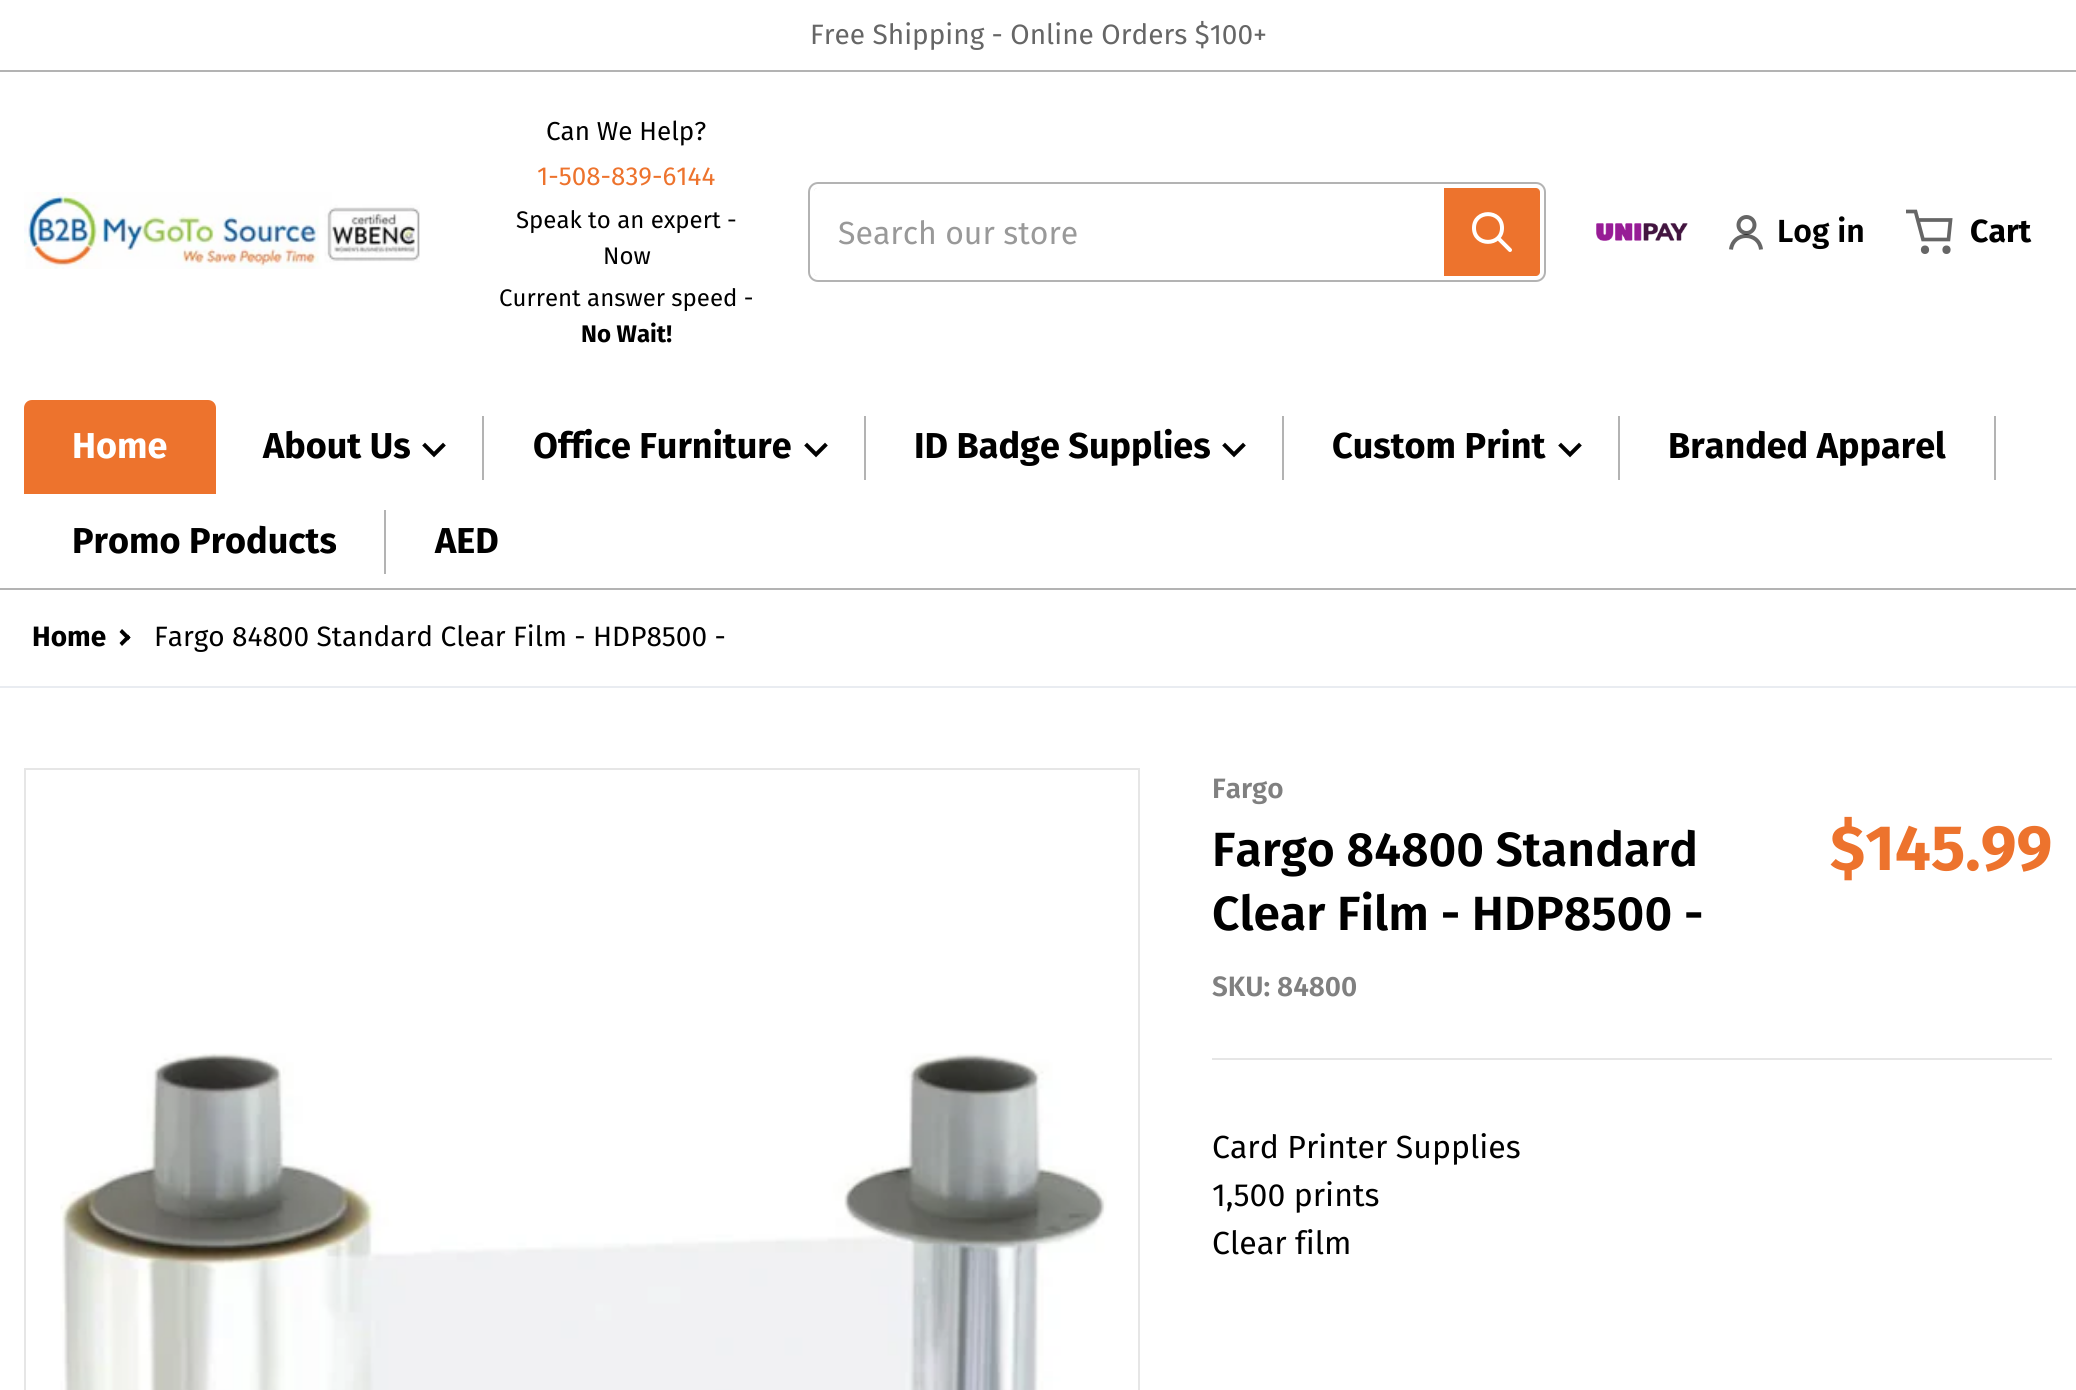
#include <cairo.h>
#include <math.h>
#include <stddef.h>


static void rgb(cairo_t *cr, int r, int g, int b)
{
	cairo_set_source_rgb(cr, r / 255.0, g / 255.0, b / 255.0);
}

static void face(cairo_t *cr, const char *family, double size, int italic, int bold)
{
	cairo_select_font_face(cr, family, italic ? CAIRO_FONT_SLANT_ITALIC : CAIRO_FONT_SLANT_NORMAL,
		bold ? CAIRO_FONT_WEIGHT_BOLD : CAIRO_FONT_WEIGHT_NORMAL);
	cairo_set_font_size(cr, size);
}

static void label(cairo_t *cr, double x, double y, const char *s)
{
	cairo_move_to(cr, x, y);
	cairo_show_text(cr, s);
}

static void rect(cairo_t *cr, double x, double y, double w, double h)
{
	cairo_rectangle(cr, x, y, w, h);
	cairo_fill(cr);
}

static void rrect(cairo_t *cr, double x, double y, double w, double h, double r)
{
	cairo_new_sub_path(cr);
	cairo_arc(cr, x + w - r, y + h - r, r, 0, M_PI / 2);
	cairo_arc(cr, x + r, y + h - r, r, M_PI / 2, M_PI);
	cairo_arc(cr, x + r, y + r, r, M_PI, 1.5 * M_PI);
	cairo_arc(cr, x + w - r, y + r, r, 1.5 * M_PI, 2 * M_PI);
	cairo_close_path(cr);
}

static void image(cairo_t *cr, const char *path, double x, double y, double w, double h)
{
	cairo_surface_t *image = cairo_image_surface_create_from_png(path);
	cairo_save(cr);
	cairo_set_source_surface(cr, image, x, y);
	cairo_rectangle(cr, x, y, w, h);
	cairo_fill(cr);
	cairo_restore(cr);
	cairo_surface_destroy(image);
}

static void draw(cairo_t *cr) {
	rgb(cr, 255, 255, 255);
	cairo_paint(cr);
	rgb(cr, 179, 179, 179);
	rect(cr, 0, 70, 2076, 2);
	face(cr, "Fira Sans", 28, 0, 0);
	rgb(cr, 102, 102, 102);
	label(cr, 810, 44, "Free Shipping - Online Orders $100+");
	rgb(cr, 179, 179, 179);
	rect(cr, 0, 588, 2076, 2);
	image(cr, "image0.png", 24, 192, 396, 77);
	face(cr, "Fira Sans", 26, 0, 0);
	rgb(cr, 0, 0, 0);
	label(cr, 546, 140, "Can We Help?");
	rgb(cr, 237, 115, 45);
	label(cr, 537, 185, "1-508-839-6144");
	face(cr, "Fira Sans", 24, 0, 0);
	rgb(cr, 0, 0, 0);
	label(cr, 516, 228, "Speak to an expert -");
	label(cr, 603, 264, "Now");
	label(cr, 499, 306, "Current answer speed -");
	face(cr, "Fira Sans", 24, 0, 1);
	label(cr, 581, 342, "No Wait!");
	rrect(cr, 811, 185, 732, 94, 7);
	rgb(cr, 179, 179, 179);
	cairo_set_line_width(cr, 6);
	cairo_stroke(cr);
	rrect(cr, 812, 186, 730, 92, 6);
	rgb(cr, 255, 255, 255);
	cairo_set_line_width(cr, 4);
	cairo_stroke(cr);
	rrect(cr, 814, 188, 694, 88, 4);
	cairo_fill(cr);
	face(cr, "Fira Sans", 32, 0, 0);
	rgb(cr, 153, 153, 153);
	label(cr, 838, 244, "Search our store");
	rgb(cr, 237, 115, 45);
	cairo_new_path(cr);
	cairo_move_to(cr, 1444, 188);
	cairo_line_to(cr, 1536, 188);
	cairo_curve_to(cr, 1538, 188, 1540, 190, 1540, 192);
	cairo_line_to(cr, 1540, 272);
	cairo_curve_to(cr, 1540, 274, 1538, 276, 1536, 276);
	cairo_line_to(cr, 1444, 276);
	cairo_close_path(cr);
	cairo_fill(cr);
	cairo_new_path(cr);
	cairo_move_to(cr, 1510, 250);
	cairo_line_to(cr, 1498, 238);
	cairo_move_to(cr, 1502, 228);
	cairo_curve_to(cr, 1502, 246.5, 1474, 246.5, 1474, 228);
	cairo_curve_to(cr, 1474, 209.5, 1502, 209.5, 1502, 228);
	cairo_close_path(cr);
	rgb(cr, 255, 255, 255);
	cairo_set_line_cap(cr, CAIRO_LINE_CAP_ROUND);
	cairo_set_line_join(cr, CAIRO_LINE_JOIN_ROUND);
	cairo_stroke(cr);
	image(cr, "image1.png", 1596, 223, 92, 18);
	cairo_arc(cr, 1746.5, 225, 8, 0, 2 * M_PI);
	rgb(cr, 102, 102, 102);
	cairo_set_line_cap(cr, CAIRO_LINE_CAP_BUTT);
	cairo_set_line_join(cr, CAIRO_LINE_JOIN_MITER);
	cairo_stroke(cr);
	cairo_new_path(cr);
	cairo_move_to(cr, 1761, 249.5);
	cairo_curve_to(cr, 1759, 231.5, 1733, 231.5, 1731, 249.5);
	cairo_set_source_rgba(cr, 0, 0, 0, 0.6);
	cairo_stroke(cr);
	face(cr, "Fira Sans SemiBold", 32, 0, 0);
	rgb(cr, 0, 0, 0);
	label(cr, 1777, 242, "Log in");
	cairo_new_path(cr);
	cairo_move_to(cr, 1906, 211.5);
	cairo_line_to(cr, 1915.5, 211.5);
	cairo_line_to(cr, 1923, 239.5);
	cairo_line_to(cr, 1948.5, 239.5);
	cairo_line_to(cr, 1950.5, 220);
	cairo_line_to(cr, 1918.5, 220);
	rgb(cr, 102, 102, 102);
	cairo_set_line_width(cr, 3.7);
	cairo_stroke(cr);
	cairo_new_path(cr);
	cairo_move_to(cr, 1925, 254);
	cairo_curve_to(cr, 1930.5, 254, 1930.5, 245.5, 1925, 245.5);
	cairo_curve_to(cr, 1919.5, 245.5, 1919.5, 254, 1925, 254);
	cairo_close_path(cr);
	cairo_move_to(cr, 1946.5, 254);
	cairo_curve_to(cr, 1952, 254, 1952, 245.5, 1946.5, 245.5);
	cairo_curve_to(cr, 1941, 245.5, 1941, 254, 1946.5, 254);
	cairo_close_path(cr);
	cairo_fill(cr);
	face(cr, "Fira Sans", 32, 0, 1);
	rgb(cr, 0, 0, 0);
	label(cr, 1970, 242, "Cart");
	rgb(cr, 237, 115, 45);
	cairo_new_path(cr);
	cairo_move_to(cr, 32, 400);
	cairo_line_to(cr, 208, 400);
	cairo_curve_to(cr, 212.5, 400, 216, 403.5, 216, 408);
	cairo_line_to(cr, 216, 494);
	cairo_line_to(cr, 24, 494);
	cairo_line_to(cr, 24, 408);
	cairo_curve_to(cr, 24, 403.5, 27.5, 400, 32, 400);
	cairo_close_path(cr);
	cairo_fill(cr);
	face(cr, "Fira Sans", 36, 0, 1);
	rgb(cr, 255, 255, 255);
	label(cr, 72, 458, "Home");
	rgb(cr, 0, 0, 0);
	label(cr, 263, 458, "About Us");
	cairo_new_path(cr);
	cairo_move_to(cr, 425, 445.5);
	cairo_line_to(cr, 434, 454.5);
	cairo_line_to(cr, 443, 445.5);
	cairo_set_line_width(cr, 4);
	cairo_set_line_cap(cr, CAIRO_LINE_CAP_SQUARE);
	cairo_stroke(cr);
	rgb(cr, 179, 179, 179);
	rect(cr, 482, 416, 2, 64);
	rgb(cr, 0, 0, 0);
	label(cr, 533, 458, "Office Furniture");
	cairo_new_path(cr);
	cairo_move_to(cr, 807, 445.5);
	cairo_line_to(cr, 816, 454.5);
	cairo_line_to(cr, 825, 445.5);
	cairo_stroke(cr);
	rgb(cr, 179, 179, 179);
	rect(cr, 864, 416, 2, 64);
	rgb(cr, 0, 0, 0);
	label(cr, 914, 458, "ID Badge Supplies");
	cairo_new_path(cr);
	cairo_move_to(cr, 1225, 445.5);
	cairo_line_to(cr, 1234, 454.5);
	cairo_line_to(cr, 1243, 445.5);
	cairo_stroke(cr);
	rgb(cr, 179, 179, 179);
	rect(cr, 1282, 416, 2, 64);
	rgb(cr, 0, 0, 0);
	label(cr, 1332, 458, "Custom Print");
	cairo_new_path(cr);
	cairo_move_to(cr, 1561, 445.5);
	cairo_line_to(cr, 1570, 454.5);
	cairo_line_to(cr, 1579, 445.5);
	cairo_stroke(cr);
	rgb(cr, 179, 179, 179);
	rect(cr, 1618, 416, 2, 64);
	rgb(cr, 0, 0, 0);
	label(cr, 1668, 458, "Branded Apparel");
	rgb(cr, 179, 179, 179);
	rect(cr, 1994, 416, 2, 64);
	rgb(cr, 0, 0, 0);
	label(cr, 72, 553, "Promo Products");
	rgb(cr, 179, 179, 179);
	rect(cr, 384, 510, 2, 64);
	rgb(cr, 0, 0, 0);
	label(cr, 435, 553, "AED");
	rgb(cr, 233, 236, 241);
	rect(cr, 0, 686, 2076, 2);
	face(cr, "Fira Sans", 28, 0, 1);
	rgb(cr, 0, 0, 0);
	label(cr, 32, 646, "Home");
	cairo_new_path(cr);
	cairo_move_to(cr, 119.5, 632);
	cairo_line_to(cr, 122, 629);
	cairo_line_to(cr, 130.5, 637.5);
	cairo_line_to(cr, 128, 640.5);
	cairo_close_path(cr);
	cairo_fill(cr);
	cairo_new_path(cr);
	cairo_move_to(cr, 119.5, 643);
	cairo_line_to(cr, 128, 634.5);
	cairo_line_to(cr, 130.5, 637.5);
	cairo_line_to(cr, 122, 646);
	cairo_close_path(cr);
	cairo_fill(cr);
	face(cr, "Fira Sans", 28, 0, 0);
	label(cr, 154, 646, "Fargo 84800 Standard Clear Film - HDP8500 -");
	cairo_rectangle(cr, 25, 769, 1114, 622);
	rgb(cr, 230, 230, 230);
	cairo_set_line_width(cr, 2);
	cairo_set_line_cap(cr, CAIRO_LINE_CAP_BUTT);
	cairo_stroke(cr);
	image(cr, "image2.png", 60, 1053, 1047, 337);
	rect(cr, 1212, 1058, 840, 2);
	face(cr, "Fira Sans SemiBold", 28, 0, 0);
	rgb(cr, 128, 128, 128);
	label(cr, 1212, 798, "Fargo");
	face(cr, "Fira Sans SemiBold", 48, 0, 0);
	rgb(cr, 0, 0, 0);
	label(cr, 1212, 866, "Fargo 84800 Standard");
	label(cr, 1212, 930, "Clear Film - HDP8500 -");
	face(cr, "Fira Sans SemiBold", 28, 0, 0);
	rgb(cr, 128, 128, 128);
	label(cr, 1212, 996, "SKU: 84800");
	face(cr, "Fira Sans", 64, 0, 1);
	rgb(cr, 237, 115, 45);
	label(cr, 1830, 870, "$145.99");
	face(cr, "Fira Sans", 32, 0, 0);
	rgb(cr, 0, 0, 0);
	label(cr, 1212, 1158, "Card Printer Supplies");
	label(cr, 1212, 1206, "1,500 prints");
	label(cr, 1212, 1254, "Clear film");
}

int main(void) {
	cairo_surface_t *surface = cairo_image_surface_create(CAIRO_FORMAT_RGB24, 2076, 1390);
	cairo_t *cr = cairo_create(surface);
	cairo_font_options_t *options = cairo_font_options_create();
	cairo_font_options_set_hint_metrics(options, CAIRO_HINT_METRICS_OFF);
	cairo_font_options_set_hint_style(options, CAIRO_HINT_STYLE_NONE);
	cairo_set_font_options(cr, options);
	cairo_set_miter_limit(cr, 4);
	draw(cr);
	cairo_surface_write_to_png(surface, "render.png");
	cairo_font_options_destroy(options);
	cairo_destroy(cr);
	cairo_surface_destroy(surface);
	return 0;
}
